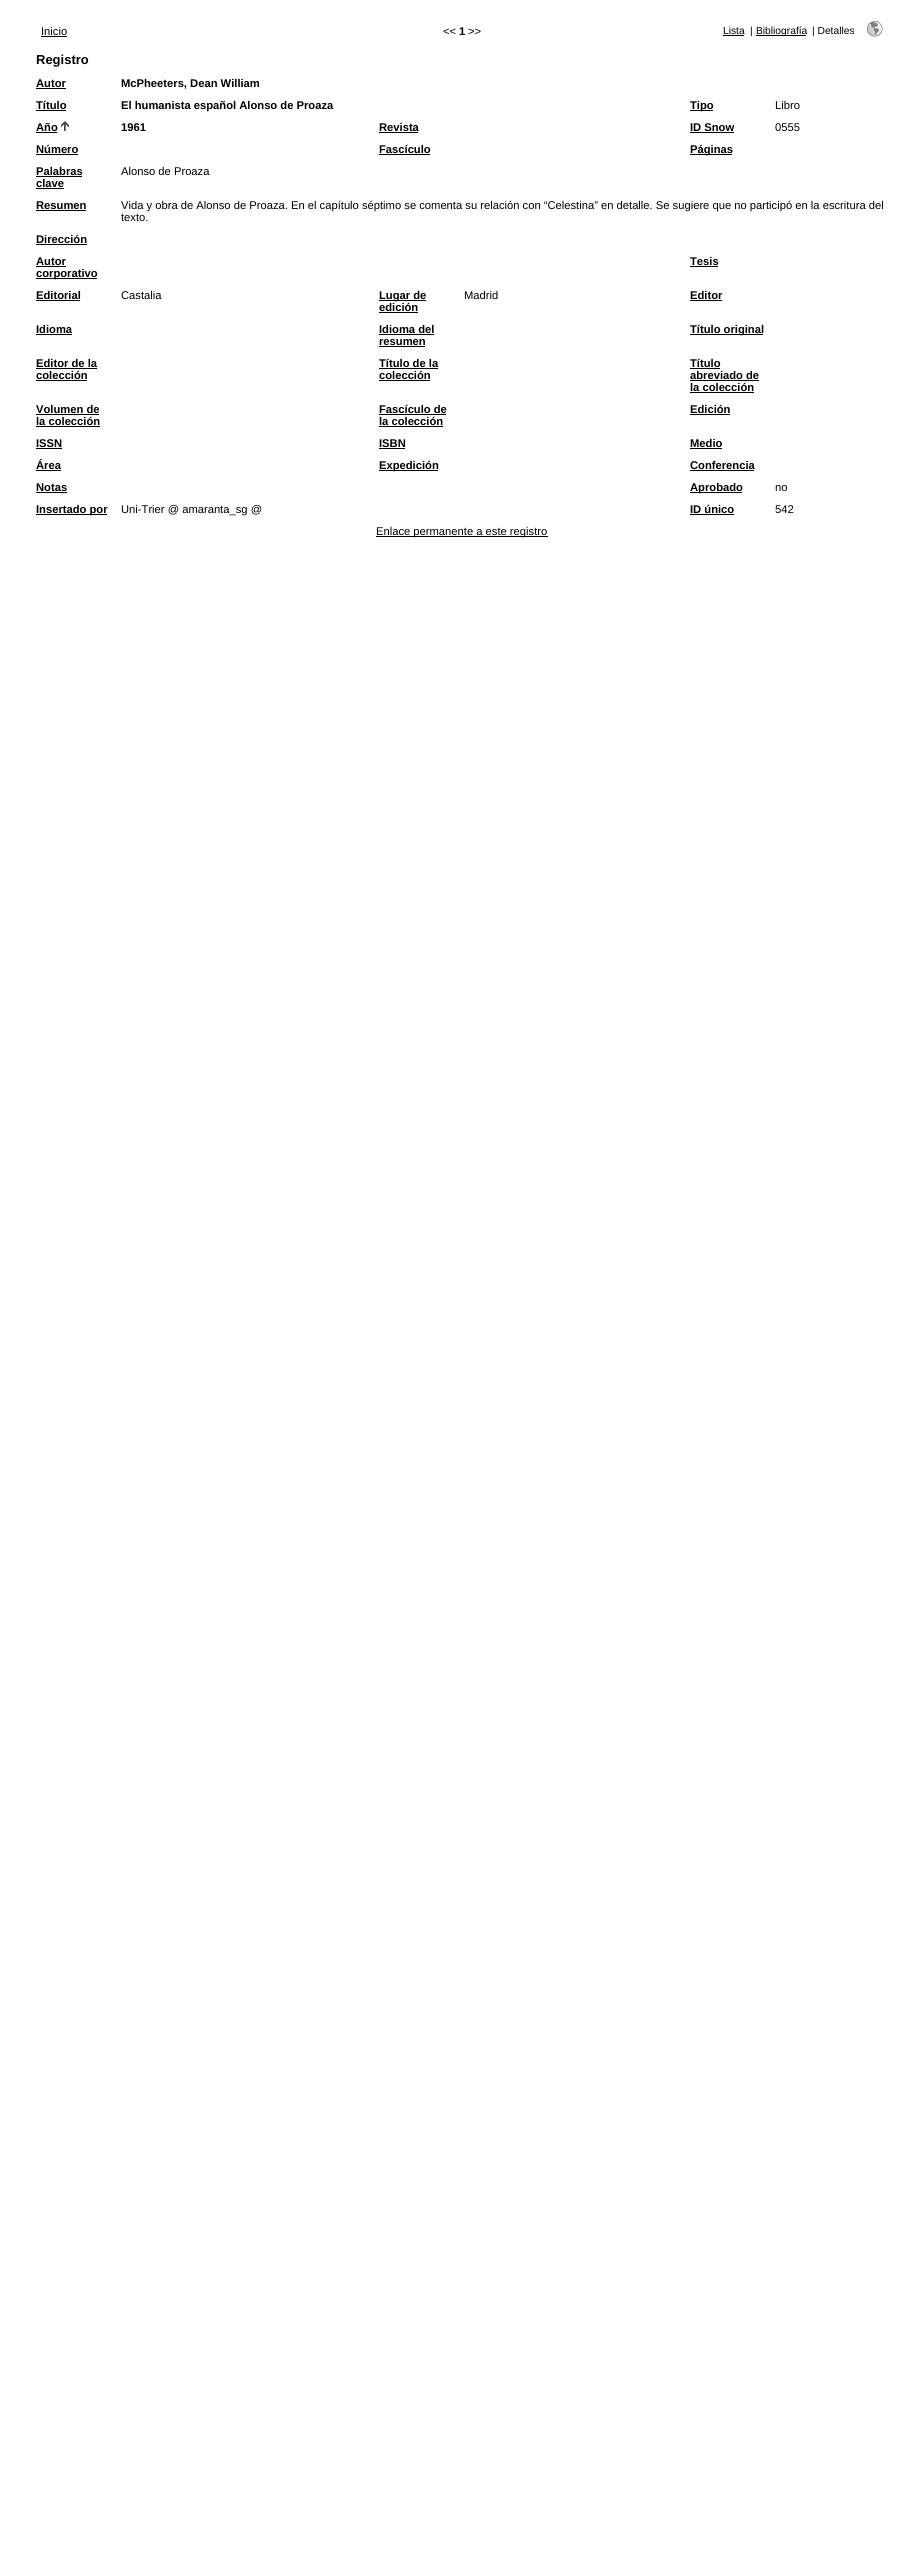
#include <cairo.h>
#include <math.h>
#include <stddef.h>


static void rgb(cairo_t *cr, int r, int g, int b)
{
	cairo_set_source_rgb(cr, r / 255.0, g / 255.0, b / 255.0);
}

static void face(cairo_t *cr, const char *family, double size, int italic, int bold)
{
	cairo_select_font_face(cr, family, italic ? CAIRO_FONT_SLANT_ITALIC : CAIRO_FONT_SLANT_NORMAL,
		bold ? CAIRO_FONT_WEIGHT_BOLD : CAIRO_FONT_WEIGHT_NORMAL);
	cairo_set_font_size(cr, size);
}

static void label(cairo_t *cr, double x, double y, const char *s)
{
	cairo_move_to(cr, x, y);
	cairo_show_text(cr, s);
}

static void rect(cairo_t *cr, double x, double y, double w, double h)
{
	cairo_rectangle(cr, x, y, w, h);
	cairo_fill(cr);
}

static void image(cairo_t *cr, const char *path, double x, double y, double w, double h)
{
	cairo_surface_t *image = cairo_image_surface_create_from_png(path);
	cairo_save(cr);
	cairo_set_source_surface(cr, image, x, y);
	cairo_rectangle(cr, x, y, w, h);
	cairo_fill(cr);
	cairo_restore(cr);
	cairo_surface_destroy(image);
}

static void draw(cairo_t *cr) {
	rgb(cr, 255, 255, 255);
	cairo_paint(cr);
	face(cr, "Liberation Sans", 11.2, 0, 0);
	rgb(cr, 0, 0, 0);
	label(cr, 41, 35, "Inicio");
	rect(cr, 41, 36, 26, 1);
	label(cr, 443, 35, "<<");
	face(cr, "Liberation Sans", 11.2, 0, 1);
	label(cr, 459, 35, "1");
	face(cr, "Liberation Sans", 11.2, 0, 0);
	label(cr, 468, 35, ">>");
	face(cr, "Liberation Sans", 10.25, 0, 0);
	label(cr, 723, 34, "Lista");
	rect(cr, 723, 35, 21, 1);
	label(cr, 750, 34, "|");
	rect(cr, 756, 35, 50, 1);
	label(cr, 756, 34, "Bibliografía");
	label(cr, 812, 34, "| Detalles");
	image(cr, "image0.png", 867, 21, 16, 16);
	face(cr, "Liberation Sans", 13, 0, 1);
	label(cr, 36, 64, "Registro");
	face(cr, "Liberation Sans", 11.2, 0, 1);
	label(cr, 36, 87, "Autor");
	rect(cr, 36, 88, 30, 1);
	label(cr, 121, 87, "McPheeters, Dean William");
	label(cr, 36, 109, "Título");
	rect(cr, 36, 110, 30, 1);
	label(cr, 121, 109, "El humanista español Alonso de Proaza");
	rect(cr, 690, 110, 23, 1);
	label(cr, 690, 109, "Tipo");
	face(cr, "Liberation Sans", 11.2, 0, 0);
	label(cr, 775, 109, "Libro");
	face(cr, "Liberation Sans", 11.2, 0, 1);
	label(cr, 36, 131, "Año");
	rect(cr, 36, 132, 21, 1);
	image(cr, "image1.png", 61, 121, 8, 10);
	label(cr, 121, 131, "1961");
	label(cr, 379, 131, "Revista");
	rect(cr, 379, 132, 39, 1);
	label(cr, 690, 131, "ID Snow");
	rect(cr, 690, 132, 44, 1);
	face(cr, "Liberation Sans", 11.2, 0, 0);
	label(cr, 775, 131, "0555");
	face(cr, "Liberation Sans", 11.2, 0, 1);
	label(cr, 36, 153, "Número");
	rect(cr, 36, 154, 42, 1);
	label(cr, 379, 153, "Fascículo");
	rect(cr, 379, 154, 51, 1);
	rect(cr, 690, 154, 42, 1);
	label(cr, 690, 153, "Páginas");
	label(cr, 36, 175, "Palabras");
	rect(cr, 36, 176, 46, 1);
	label(cr, 36, 187, "clave");
	rect(cr, 36, 188, 28, 1);
	face(cr, "Liberation Sans", 11.2, 0, 0);
	label(cr, 121, 175, "Alonso de Proaza");
	face(cr, "Liberation Sans", 11.2, 0, 1);
	label(cr, 36, 209, "Resumen");
	rect(cr, 36, 210, 50, 1);
	face(cr, "Liberation Sans", 11.2, 0, 0);
	label(cr, 121, 209, "Vida y obra de Alonso de Proaza. En el capítulo séptimo se comenta su relación con “Celestina” en detalle. Se sugiere que no participó en la escritura del");
	label(cr, 121, 221, "texto.");
	face(cr, "Liberation Sans", 11.2, 0, 1);
	label(cr, 36, 243, "Dirección");
	rect(cr, 36, 244, 51, 1);
	label(cr, 36, 265, "Autor");
	rect(cr, 36, 266, 30, 1);
	rect(cr, 36, 278, 61, 1);
	label(cr, 36, 277, "corporativo");
	label(cr, 690, 265, "Tesis");
	rect(cr, 690, 266, 28, 1);
	label(cr, 36, 299, "Editorial");
	rect(cr, 36, 300, 44, 1);
	face(cr, "Liberation Sans", 11.2, 0, 0);
	label(cr, 121, 299, "Castalia");
	rect(cr, 379, 300, 47, 1);
	face(cr, "Liberation Sans", 11.2, 0, 1);
	label(cr, 379, 299, "Lugar de");
	label(cr, 379, 311, "edición");
	rect(cr, 379, 312, 39, 1);
	face(cr, "Liberation Sans", 11.2, 0, 0);
	label(cr, 464, 299, "Madrid");
	face(cr, "Liberation Sans", 11.2, 0, 1);
	label(cr, 690, 299, "Editor");
	rect(cr, 690, 300, 32, 1);
	label(cr, 36, 333, "Idioma");
	rect(cr, 36, 334, 36, 1);
	label(cr, 379, 333, "Idioma del");
	rect(cr, 379, 334, 55, 1);
	label(cr, 379, 345, "resumen");
	rect(cr, 379, 346, 46, 1);
	rect(cr, 690, 334, 73, 1);
	label(cr, 690, 333, "Título original");
	label(cr, 36, 367, "Editor de la");
	rect(cr, 36, 368, 61, 1);
	label(cr, 36, 379, "colección");
	rect(cr, 36, 380, 51, 1);
	label(cr, 379, 367, "Título de la");
	rect(cr, 379, 368, 59, 1);
	label(cr, 379, 379, "colección");
	rect(cr, 379, 380, 51, 1);
	label(cr, 690, 367, "Título");
	rect(cr, 690, 368, 30, 1);
	label(cr, 690, 379, "abreviado de");
	rect(cr, 690, 380, 69, 1);
	label(cr, 690, 391, "la colección");
	rect(cr, 690, 392, 64, 1);
	label(cr, 36, 413, "Volumen de");
	rect(cr, 36, 414, 63, 1);
	label(cr, 36, 425, "la colección");
	rect(cr, 36, 426, 64, 1);
	label(cr, 379, 413, "Fascículo de");
	rect(cr, 379, 414, 67, 1);
	label(cr, 379, 425, "la colección");
	rect(cr, 379, 426, 64, 1);
	label(cr, 690, 413, "Edición");
	rect(cr, 690, 414, 40, 1);
	label(cr, 36, 447, "ISSN");
	rect(cr, 36, 448, 26, 1);
	label(cr, 379, 447, "ISBN");
	rect(cr, 379, 448, 26, 1);
	label(cr, 690, 447, "Medio");
	rect(cr, 690, 448, 32, 1);
	label(cr, 36, 469, "Área");
	rect(cr, 36, 470, 25, 1);
	rect(cr, 379, 470, 59, 1);
	label(cr, 379, 469, "Expedición");
	label(cr, 690, 469, "Conferencia");
	rect(cr, 690, 470, 64, 1);
	label(cr, 36, 491, "Notas");
	rect(cr, 36, 492, 31, 1);
	rect(cr, 690, 492, 52, 1);
	label(cr, 690, 491, "Aprobado");
	face(cr, "Liberation Sans", 11.2, 0, 0);
	label(cr, 775, 491, "no");
	rect(cr, 36, 514, 71, 1);
	face(cr, "Liberation Sans", 11.2, 0, 1);
	label(cr, 36, 513, "Insertado por");
	face(cr, "Liberation Sans", 11.2, 0, 0);
	label(cr, 121, 513, "Uni-Trier @ amaranta_sg @");
	face(cr, "Liberation Sans", 11.2, 0, 1);
	label(cr, 690, 513, "ID único");
	rect(cr, 690, 514, 44, 1);
	face(cr, "Liberation Sans", 11.2, 0, 0);
	label(cr, 775, 513, "542");
	rect(cr, 376, 536, 172, 1);
	label(cr, 376, 535, "Enlace permanente a este registro");
}

int main(void) {
	cairo_surface_t *surface = cairo_image_surface_create(CAIRO_FORMAT_RGB24, 924, 2555);
	cairo_t *cr = cairo_create(surface);
	cairo_font_options_t *options = cairo_font_options_create();
	cairo_font_options_set_hint_metrics(options, CAIRO_HINT_METRICS_OFF);
	cairo_font_options_set_hint_style(options, CAIRO_HINT_STYLE_NONE);
	cairo_set_font_options(cr, options);
	cairo_set_miter_limit(cr, 4);
	draw(cr);
	cairo_surface_write_to_png(surface, "render.png");
	cairo_font_options_destroy(options);
	cairo_destroy(cr);
	cairo_surface_destroy(surface);
	return 0;
}
